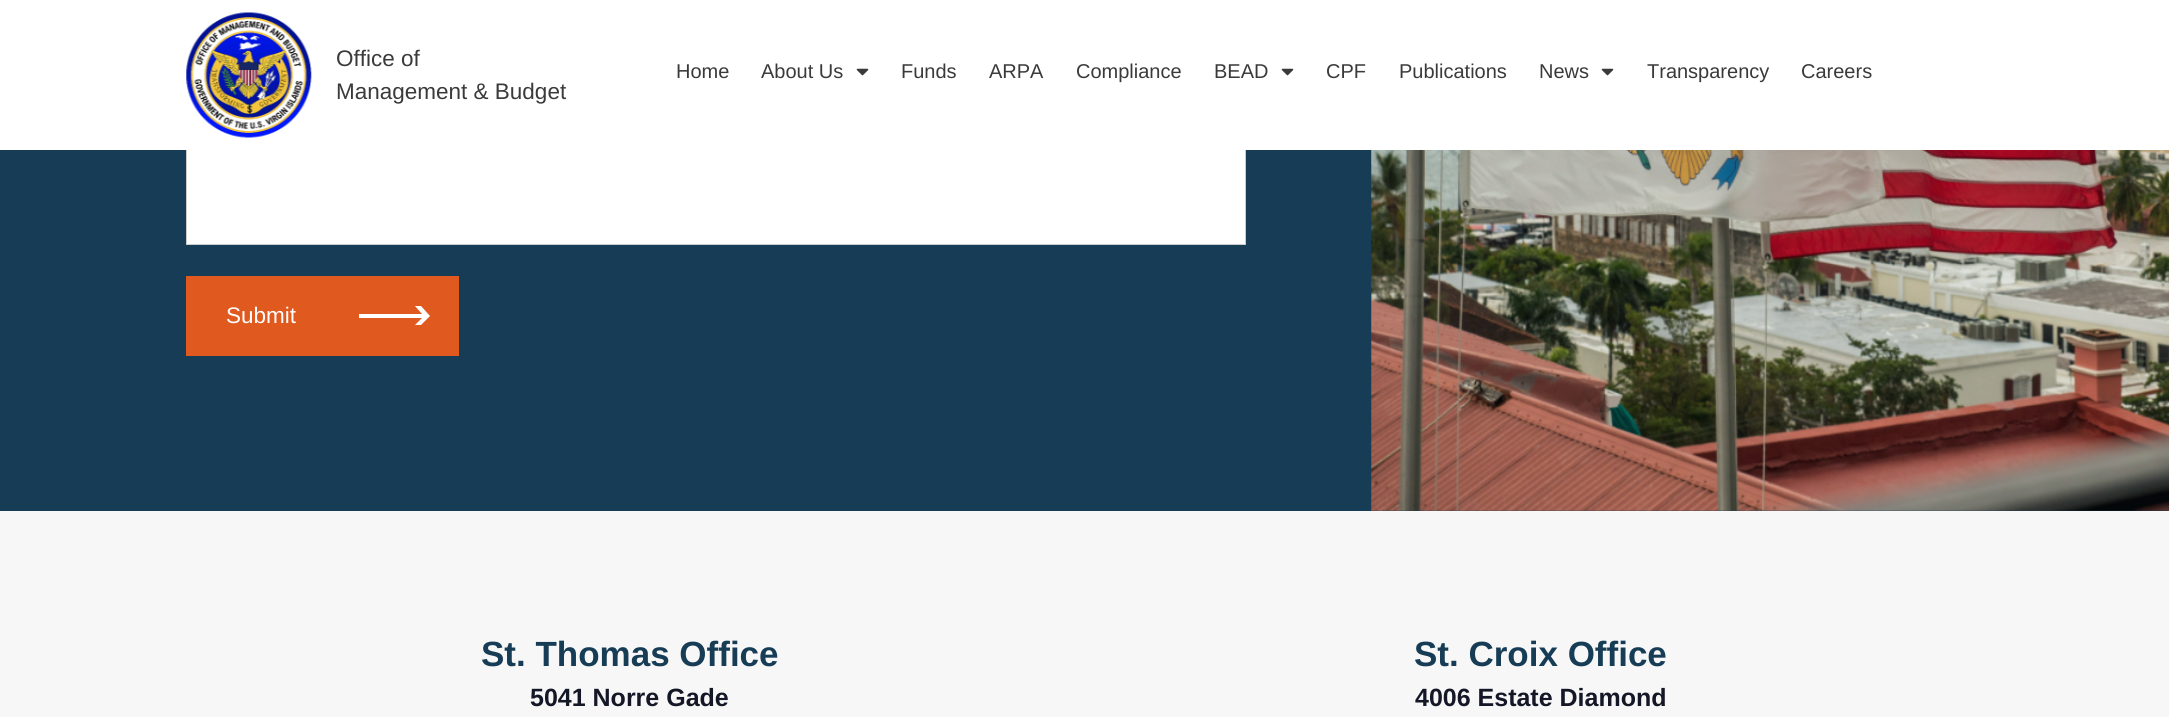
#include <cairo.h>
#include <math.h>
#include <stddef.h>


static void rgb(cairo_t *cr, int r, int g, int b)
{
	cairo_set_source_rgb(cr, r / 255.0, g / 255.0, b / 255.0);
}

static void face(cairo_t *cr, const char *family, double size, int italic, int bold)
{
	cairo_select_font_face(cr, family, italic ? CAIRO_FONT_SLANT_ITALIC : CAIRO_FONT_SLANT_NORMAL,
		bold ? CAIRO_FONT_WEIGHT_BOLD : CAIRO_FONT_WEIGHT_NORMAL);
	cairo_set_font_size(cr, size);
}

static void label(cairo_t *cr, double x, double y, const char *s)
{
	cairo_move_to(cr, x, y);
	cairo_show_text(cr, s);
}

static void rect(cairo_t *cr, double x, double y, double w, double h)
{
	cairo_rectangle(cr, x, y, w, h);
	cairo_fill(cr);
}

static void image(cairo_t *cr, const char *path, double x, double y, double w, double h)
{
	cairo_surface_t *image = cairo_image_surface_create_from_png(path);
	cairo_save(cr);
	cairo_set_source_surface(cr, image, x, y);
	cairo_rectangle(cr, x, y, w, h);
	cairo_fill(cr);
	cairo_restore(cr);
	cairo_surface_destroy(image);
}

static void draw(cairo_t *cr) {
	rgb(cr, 23, 60, 85);
	cairo_paint(cr);
	rgb(cr, 255, 255, 255);
	rect(cr, 187, 150, 1058, 94);
	cairo_rectangle(cr, 186.5, 95.5, 1059, 149);
	rgb(cr, 204, 204, 204);
	cairo_set_line_width(cr, 1);
	cairo_stroke(cr);
	rgb(cr, 255, 255, 255);
	rect(cr, 0, 0, 2169, 150);
	image(cr, "image0.png", 186, 12, 126, 126);
	face(cr, "Liberation Sans", 22.5, 0, 0);
	rgb(cr, 58, 58, 58);
	label(cr, 336, 66, "Office of");
	label(cr, 336, 99, "Management & Budget");
	face(cr, "Liberation Sans", 20, 0, 0);
	label(cr, 676, 78, "Home");
	label(cr, 761, 78, "About Us");
	image(cr, "image1.png", 856, 68, 13, 8);
	label(cr, 901, 78, "Funds");
	label(cr, 989, 78, "ARPA");
	label(cr, 1076, 78, "Compliance");
	label(cr, 1214, 78, "BEAD");
	image(cr, "image1.png", 1281, 68, 13, 8);
	label(cr, 1326, 78, "CPF");
	label(cr, 1399, 78, "Publications");
	label(cr, 1539, 78, "News");
	image(cr, "image1.png", 1601, 68, 13, 8);
	label(cr, 1647, 78, "Transparency");
	label(cr, 1801, 78, "Careers");
	rgb(cr, 224, 90, 32);
	rect(cr, 186, 276, 273, 80);
	rgb(cr, 255, 255, 255);
	cairo_new_path(cr);
	cairo_move_to(cr, 415, 306);
	cairo_line_to(cr, 422, 314);
	cairo_line_to(cr, 359, 314);
	cairo_line_to(cr, 359, 318);
	cairo_line_to(cr, 422, 318);
	cairo_line_to(cr, 415, 325);
	cairo_line_to(cr, 421, 325);
	cairo_line_to(cr, 430, 316);
	cairo_line_to(cr, 421, 306);
	cairo_close_path(cr);
	cairo_fill(cr);
	face(cr, "Liberation Sans", 22.5, 0, 0);
	label(cr, 226, 323, "Submit");
	image(cr, "image2.png", 1371, 150, 798, 361);
	rgb(cr, 247, 247, 247);
	rect(cr, 0, 511, 2169, 206);
	face(cr, "Liberation Sans", 35, 0, 1);
	rgb(cr, 23, 60, 85);
	label(cr, 481, 666, "St. Thomas Office");
	face(cr, "Liberation Sans", 25, 0, 1);
	rgb(cr, 20, 23, 38);
	label(cr, 530, 706, "5041 Norre Gade");
	face(cr, "Liberation Sans", 35, 0, 1);
	rgb(cr, 23, 60, 85);
	label(cr, 1414, 666, "St. Croix Office");
	face(cr, "Liberation Sans", 25, 0, 1);
	rgb(cr, 20, 23, 38);
	label(cr, 1415, 706, "4006 Estate Diamond");
}

int main(void) {
	cairo_surface_t *surface = cairo_image_surface_create(CAIRO_FORMAT_RGB24, 2169, 717);
	cairo_t *cr = cairo_create(surface);
	cairo_font_options_t *options = cairo_font_options_create();
	cairo_font_options_set_hint_metrics(options, CAIRO_HINT_METRICS_OFF);
	cairo_font_options_set_hint_style(options, CAIRO_HINT_STYLE_NONE);
	cairo_set_font_options(cr, options);
	cairo_set_miter_limit(cr, 4);
	draw(cr);
	cairo_surface_write_to_png(surface, "render.png");
	cairo_font_options_destroy(options);
	cairo_destroy(cr);
	cairo_surface_destroy(surface);
	return 0;
}
